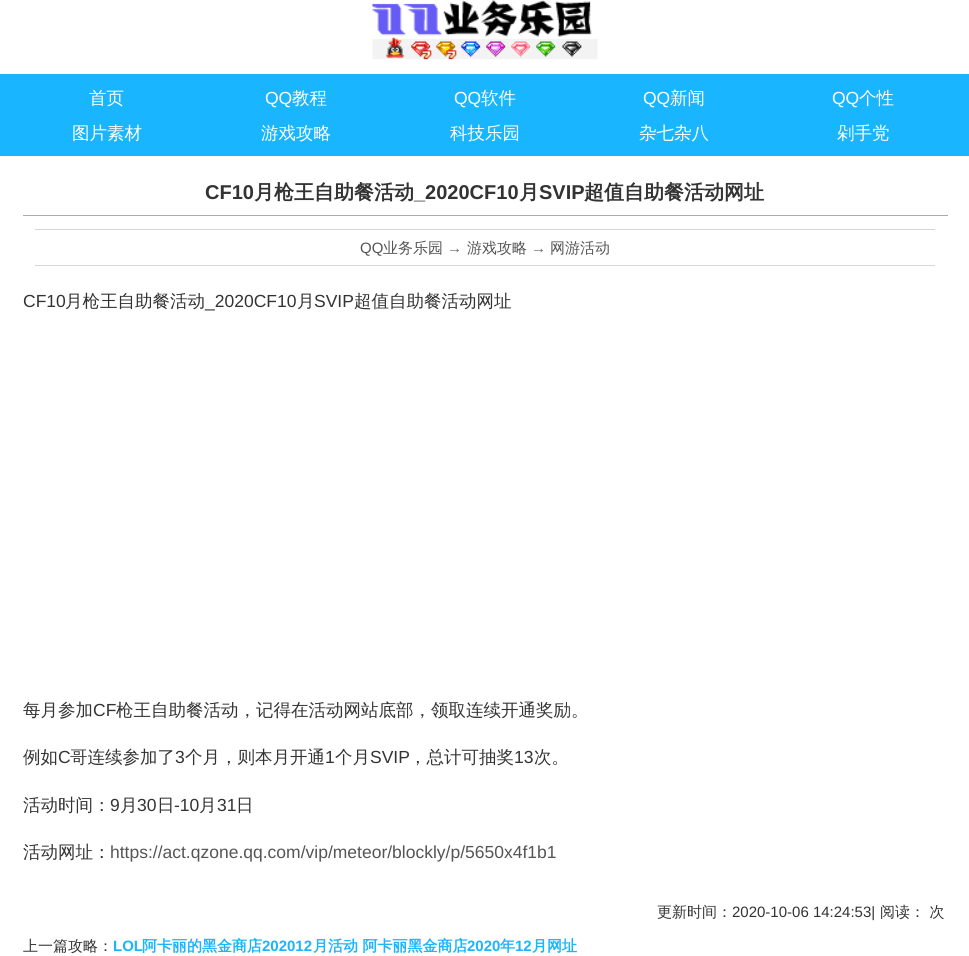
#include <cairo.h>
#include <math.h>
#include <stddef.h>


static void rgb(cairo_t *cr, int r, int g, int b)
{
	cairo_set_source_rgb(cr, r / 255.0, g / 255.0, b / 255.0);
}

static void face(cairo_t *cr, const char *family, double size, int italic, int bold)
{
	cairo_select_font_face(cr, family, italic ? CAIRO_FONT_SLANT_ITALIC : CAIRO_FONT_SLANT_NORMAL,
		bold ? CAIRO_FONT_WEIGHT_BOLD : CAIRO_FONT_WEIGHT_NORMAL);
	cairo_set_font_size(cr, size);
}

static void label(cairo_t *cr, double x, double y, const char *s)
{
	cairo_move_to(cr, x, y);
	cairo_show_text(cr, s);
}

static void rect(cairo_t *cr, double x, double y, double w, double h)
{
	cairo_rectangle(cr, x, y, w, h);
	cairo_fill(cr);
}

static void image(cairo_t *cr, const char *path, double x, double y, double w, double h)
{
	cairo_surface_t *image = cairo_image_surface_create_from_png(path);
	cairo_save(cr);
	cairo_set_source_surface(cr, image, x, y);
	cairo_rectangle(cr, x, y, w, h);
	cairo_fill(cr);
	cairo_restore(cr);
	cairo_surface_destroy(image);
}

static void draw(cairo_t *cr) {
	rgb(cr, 255, 255, 255);
	cairo_paint(cr);
	image(cr, "image0.png", 372, 0, 226, 60);
	rgb(cr, 25, 181, 254);
	rect(cr, 0, 74, 969, 82);
	face(cr, "WenQuanYi Zen Hei Medium", 17.5, 0, 0);
	rgb(cr, 255, 255, 255);
	label(cr, 89, 104, "首页");
	face(cr, "Liberation Sans", 17.5, 0, 0);
	label(cr, 265, 104, "QQ");
	face(cr, "WenQuanYi Zen Hei Medium", 17.5, 0, 0);
	label(cr, 292, 104, "教程");
	face(cr, "Liberation Sans", 17.5, 0, 0);
	label(cr, 454, 104, "QQ");
	face(cr, "WenQuanYi Zen Hei Medium", 17.5, 0, 0);
	label(cr, 481, 104, "软件");
	face(cr, "Liberation Sans", 17.5, 0, 0);
	label(cr, 643, 104, "QQ");
	face(cr, "WenQuanYi Zen Hei Medium", 17.5, 0, 0);
	label(cr, 670, 104, "新闻");
	face(cr, "Liberation Sans", 17.5, 0, 0);
	label(cr, 832, 104, "QQ");
	face(cr, "WenQuanYi Zen Hei Medium", 17.5, 0, 0);
	label(cr, 859, 104, "个性");
	label(cr, 72, 139, "图片素材");
	label(cr, 261, 139, "游戏攻略");
	label(cr, 450, 139, "科技乐园");
	label(cr, 639, 139, "杂七杂八");
	label(cr, 837, 139, "剁手党");
	rgb(cr, 170, 170, 170);
	rect(cr, 23, 215, 925, 1);
	face(cr, "Liberation Sans", 20, 0, 1);
	rgb(cr, 51, 51, 51);
	label(cr, 205, 199, "CF10");
	face(cr, "WenQuanYi Zen Hei", 20, 0, 1);
	label(cr, 254, 199, "月枪王自助餐活动");
	face(cr, "Liberation Sans", 20, 0, 1);
	label(cr, 414, 199, "_2020CF10");
	face(cr, "WenQuanYi Zen Hei", 20, 0, 1);
	label(cr, 519, 199, "月");
	face(cr, "Liberation Sans", 20, 0, 1);
	label(cr, 539, 199, "SVIP");
	face(cr, "WenQuanYi Zen Hei", 20, 0, 1);
	label(cr, 584, 199, "超值自助餐活动网址");
	rgb(cr, 215, 215, 215);
	rect(cr, 35, 229, 900, 1);
	rect(cr, 35, 265, 900, 1);
	face(cr, "Liberation Sans", 15, 0, 0);
	rgb(cr, 85, 85, 85);
	label(cr, 360, 253, "QQ");
	face(cr, "WenQuanYi Zen Hei Medium", 15, 0, 0);
	label(cr, 383, 253, "业务乐园");
	face(cr, "Liberation Sans", 15, 0, 0);
	rgb(cr, 102, 102, 102);
	label(cr, 447, 253, "→");
	face(cr, "WenQuanYi Zen Hei Medium", 15, 0, 0);
	rgb(cr, 85, 85, 85);
	label(cr, 467, 253, "游戏攻略");
	face(cr, "Liberation Sans", 15, 0, 0);
	rgb(cr, 102, 102, 102);
	label(cr, 531, 253, "→");
	face(cr, "WenQuanYi Zen Hei Medium", 15, 0, 0);
	rgb(cr, 85, 85, 85);
	label(cr, 550, 253, "网游活动");
	face(cr, "Liberation Sans", 17.5, 0, 0);
	rgb(cr, 51, 51, 51);
	label(cr, 23, 307, "CF10");
	face(cr, "WenQuanYi Zen Hei Medium", 17.5, 0, 0);
	label(cr, 65, 307, "月枪王自助餐活动");
	face(cr, "Liberation Sans", 17.5, 0, 0);
	label(cr, 205, 307, "_2020CF10");
	face(cr, "WenQuanYi Zen Hei Medium", 17.5, 0, 0);
	label(cr, 297, 307, "月");
	face(cr, "Liberation Sans", 17.5, 0, 0);
	label(cr, 314, 307, "SVIP");
	face(cr, "WenQuanYi Zen Hei Medium", 17.5, 0, 0);
	label(cr, 354, 307, "超值自助餐活动网址");
	label(cr, 23, 716, "每月参加");
	face(cr, "Liberation Sans", 17.5, 0, 0);
	label(cr, 93, 716, "CF");
	face(cr, "WenQuanYi Zen Hei Medium", 17.5, 0, 0);
	label(cr, 116, 716, "枪王自助餐活动，记得在活动网站底部，领取连续开通奖励。");
	label(cr, 23, 763, "例如");
	face(cr, "Liberation Sans", 17.5, 0, 0);
	label(cr, 58, 763, "C");
	face(cr, "WenQuanYi Zen Hei Medium", 17.5, 0, 0);
	label(cr, 70, 763, "哥连续参加了");
	face(cr, "Liberation Sans", 17.5, 0, 0);
	label(cr, 175, 763, "3");
	face(cr, "WenQuanYi Zen Hei Medium", 17.5, 0, 0);
	label(cr, 185, 763, "个月，则本月开通");
	face(cr, "Liberation Sans", 17.5, 0, 0);
	label(cr, 325, 763, "1");
	face(cr, "WenQuanYi Zen Hei Medium", 17.5, 0, 0);
	label(cr, 335, 763, "个月");
	face(cr, "Liberation Sans", 17.5, 0, 0);
	label(cr, 370, 763, "SVIP");
	face(cr, "WenQuanYi Zen Hei Medium", 17.5, 0, 0);
	label(cr, 409, 763, "，总计可抽奖");
	face(cr, "Liberation Sans", 17.5, 0, 0);
	label(cr, 514, 763, "13");
	face(cr, "WenQuanYi Zen Hei Medium", 17.5, 0, 0);
	label(cr, 534, 763, "次。");
	label(cr, 23, 811, "活动时间：");
	face(cr, "Liberation Sans", 17.5, 0, 0);
	label(cr, 110, 811, "9");
	face(cr, "WenQuanYi Zen Hei Medium", 17.5, 0, 0);
	label(cr, 120, 811, "月");
	face(cr, "Liberation Sans", 17.5, 0, 0);
	label(cr, 137, 811, "30");
	face(cr, "WenQuanYi Zen Hei Medium", 17.5, 0, 0);
	label(cr, 157, 811, "日");
	face(cr, "Liberation Sans", 17.5, 0, 0);
	label(cr, 174, 811, "-10");
	face(cr, "WenQuanYi Zen Hei Medium", 17.5, 0, 0);
	label(cr, 199, 811, "月");
	face(cr, "Liberation Sans", 17.5, 0, 0);
	label(cr, 217, 811, "31");
	face(cr, "WenQuanYi Zen Hei Medium", 17.5, 0, 0);
	label(cr, 236, 811, "日");
	label(cr, 23, 858, "活动网址：");
	face(cr, "Liberation Sans", 17.5, 0, 0);
	rgb(cr, 85, 85, 85);
	label(cr, 110, 858, "https://act.qzone.qq.com/vip/meteor/blockly/p/5650x4f1b1");
	face(cr, "WenQuanYi Zen Hei Medium", 15, 0, 0);
	rgb(cr, 51, 51, 51);
	label(cr, 657, 917, "更新时间：");
	face(cr, "Liberation Sans", 15, 0, 0);
	label(cr, 732, 917, "2020-10-06 14:24:53|");
	face(cr, "WenQuanYi Zen Hei Medium", 15, 0, 0);
	label(cr, 880, 917, "阅读： 次");
	label(cr, 23, 951, "上一篇攻略：");
	face(cr, "Liberation Sans", 15, 0, 1);
	rgb(cr, 25, 181, 254);
	label(cr, 113, 951, "LOL");
	face(cr, "WenQuanYi Zen Hei", 15, 0, 1);
	label(cr, 142, 951, "阿卡丽的黑金商店");
	face(cr, "Liberation Sans", 15, 0, 1);
	label(cr, 262, 951, "202012");
	face(cr, "WenQuanYi Zen Hei", 15, 0, 1);
	label(cr, 313, 951, "月活动 阿卡丽黑金商店");
	face(cr, "Liberation Sans", 15, 0, 1);
	label(cr, 467, 951, "2020");
	face(cr, "WenQuanYi Zen Hei", 15, 0, 1);
	label(cr, 500, 951, "年");
	face(cr, "Liberation Sans", 15, 0, 1);
	label(cr, 515, 951, "12");
	face(cr, "WenQuanYi Zen Hei", 15, 0, 1);
	label(cr, 532, 951, "月网址");
}

int main(void) {
	cairo_surface_t *surface = cairo_image_surface_create(CAIRO_FORMAT_RGB24, 969, 956);
	cairo_t *cr = cairo_create(surface);
	cairo_font_options_t *options = cairo_font_options_create();
	cairo_font_options_set_hint_metrics(options, CAIRO_HINT_METRICS_OFF);
	cairo_font_options_set_hint_style(options, CAIRO_HINT_STYLE_NONE);
	cairo_set_font_options(cr, options);
	cairo_set_miter_limit(cr, 4);
	draw(cr);
	cairo_surface_write_to_png(surface, "render.png");
	cairo_font_options_destroy(options);
	cairo_destroy(cr);
	cairo_surface_destroy(surface);
	return 0;
}
